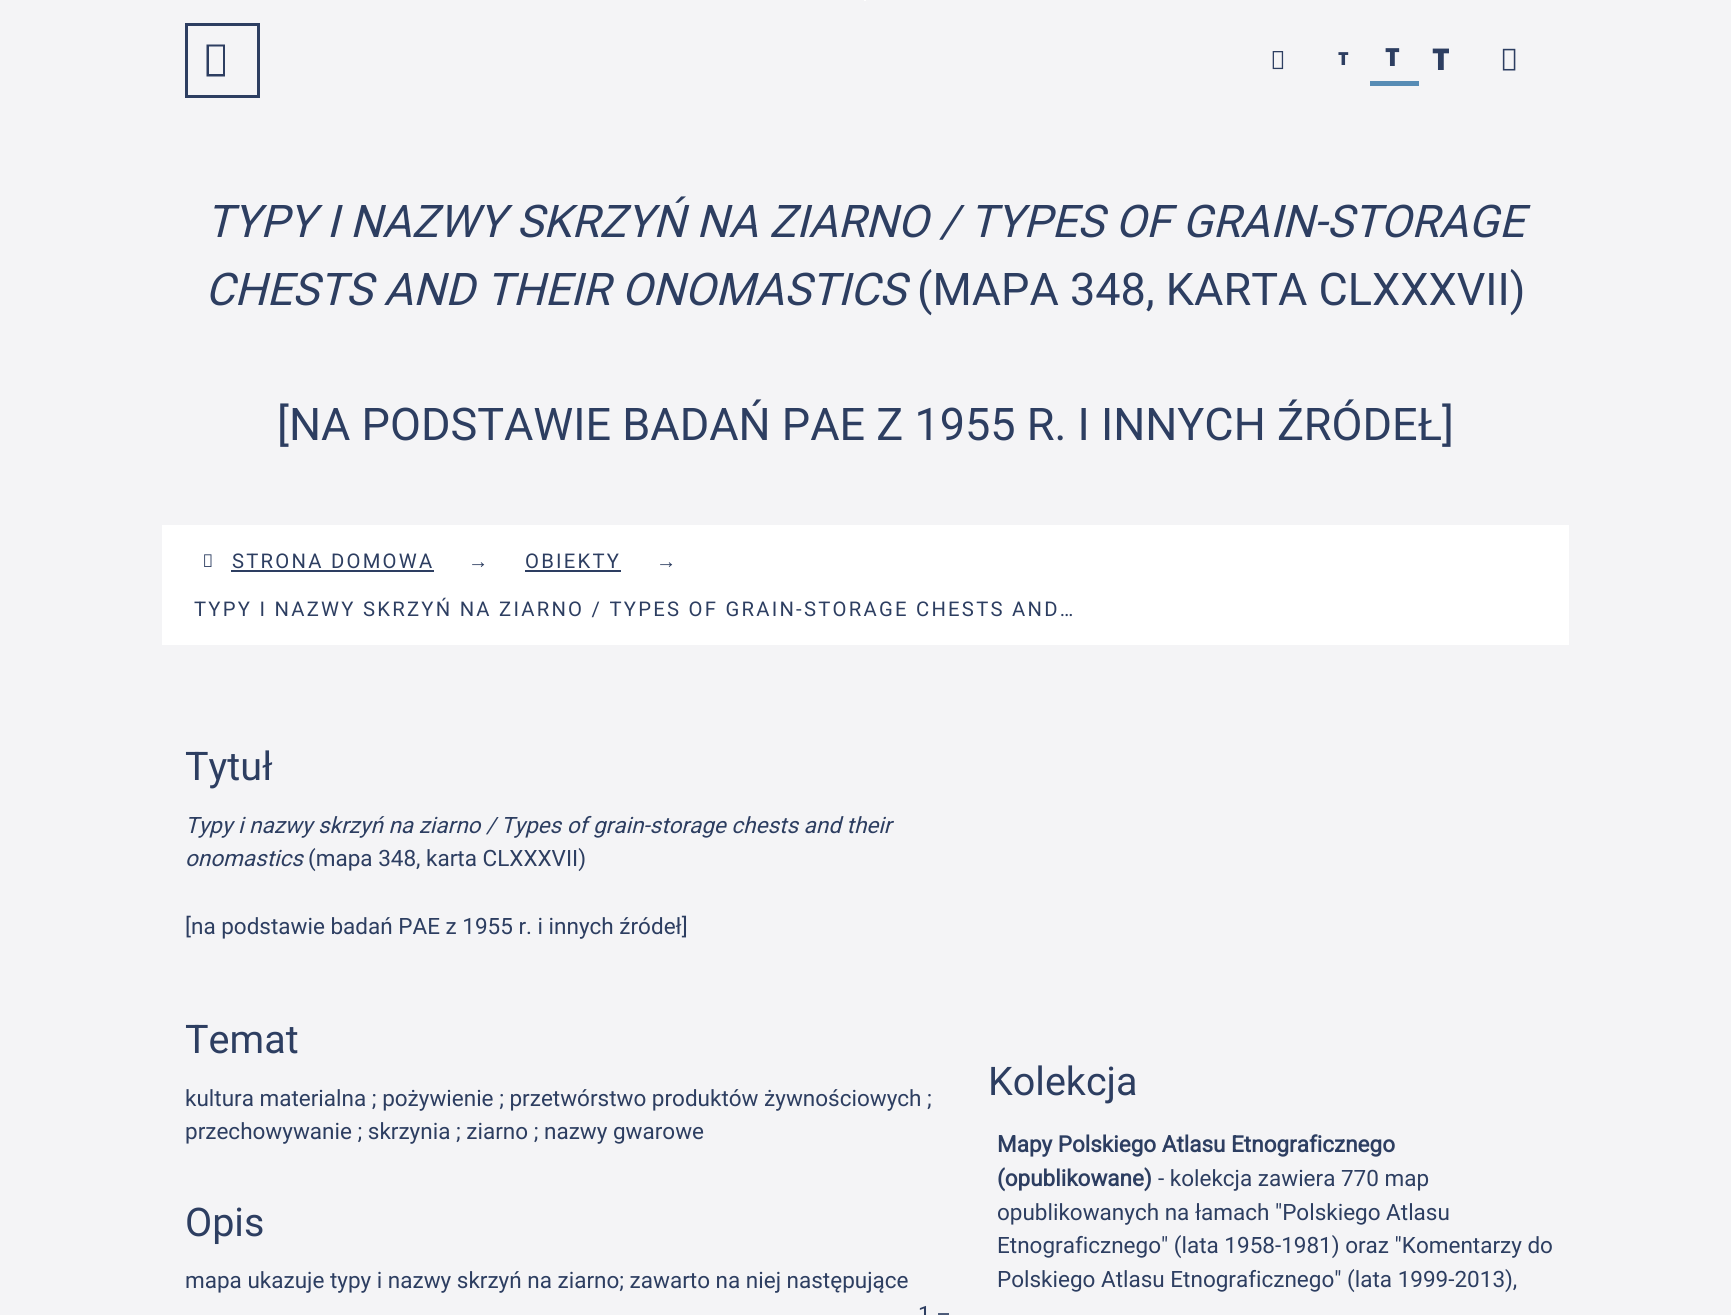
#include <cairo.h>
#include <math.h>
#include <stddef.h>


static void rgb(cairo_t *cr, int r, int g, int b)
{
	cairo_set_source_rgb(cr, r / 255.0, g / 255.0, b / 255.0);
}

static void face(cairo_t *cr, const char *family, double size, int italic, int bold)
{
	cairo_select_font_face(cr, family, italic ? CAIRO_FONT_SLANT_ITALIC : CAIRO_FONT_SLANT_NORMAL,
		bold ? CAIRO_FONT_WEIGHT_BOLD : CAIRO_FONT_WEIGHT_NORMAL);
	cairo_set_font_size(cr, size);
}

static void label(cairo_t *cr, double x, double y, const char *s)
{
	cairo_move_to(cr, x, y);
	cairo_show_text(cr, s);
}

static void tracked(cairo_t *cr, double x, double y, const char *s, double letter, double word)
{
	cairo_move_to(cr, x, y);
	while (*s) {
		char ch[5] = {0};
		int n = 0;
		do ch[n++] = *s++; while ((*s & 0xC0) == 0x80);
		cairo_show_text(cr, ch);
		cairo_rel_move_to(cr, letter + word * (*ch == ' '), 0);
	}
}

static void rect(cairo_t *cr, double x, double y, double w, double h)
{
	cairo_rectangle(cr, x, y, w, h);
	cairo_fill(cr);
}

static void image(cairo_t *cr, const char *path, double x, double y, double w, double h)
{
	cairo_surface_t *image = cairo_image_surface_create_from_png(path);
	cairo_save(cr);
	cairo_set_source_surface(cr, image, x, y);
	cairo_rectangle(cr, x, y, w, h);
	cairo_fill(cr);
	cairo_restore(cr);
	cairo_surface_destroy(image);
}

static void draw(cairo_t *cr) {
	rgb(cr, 244, 244, 246);
	cairo_paint(cr);
	rgb(cr, 255, 255, 255);
	rect(cr, 864, 0, 2, 1);
	cairo_rectangle(cr, 186.5, 24.5, 72, 72);
	rgb(cr, 45, 62, 97);
	cairo_set_line_width(cr, 3);
	cairo_stroke(cr);
	cairo_new_path(cr);
	cairo_move_to(cr, 206.5, 76.5);
	cairo_line_to(cr, 206.5, 44.5);
	cairo_line_to(cr, 225, 44.5);
	cairo_line_to(cr, 225, 76.5);
	cairo_close_path(cr);
	cairo_move_to(cr, 209, 74);
	cairo_line_to(cr, 223, 74);
	cairo_line_to(cr, 223, 46.5);
	cairo_line_to(cr, 209, 46.5);
	cairo_close_path(cr);
	cairo_fill(cr);
	image(cr, "image0.png", 1272, 51, 12, 19);
	face(cr, "Noto Sans Black", 18, 0, 0);
	label(cr, 1338, 65, "T");
	rgb(cr, 87, 140, 181);
	rect(cr, 1370, 81, 49, 5);
	face(cr, "Noto Sans Black", 25, 0, 0);
	rgb(cr, 45, 62, 97);
	label(cr, 1385, 66, "T");
	face(cr, "Noto Sans Black", 30, 0, 0);
	label(cr, 1432, 70, "T");
	image(cr, "image1.png", 1502, 48, 14, 23);
	face(cr, "Roboto", 45, 1, 0);
	label(cr, 206, 237, "TYPY I NAZWY SKRZYŃ NA ZIARNO / TYPES OF GRAIN-STORAGE");
	label(cr, 205, 305, "CHESTS AND THEIR ONOMASTICS");
	face(cr, "Roboto", 45, 0, 0);
	label(cr, 917, 305, "(MAPA 348, KARTA CLXXXVII)");
	label(cr, 277, 440, "[NA PODSTAWIE BADAŃ PAE Z 1955 R. I INNYCH ŹRÓDEŁ]");
	rgb(cr, 255, 255, 255);
	rect(cr, 162, 525, 1407, 120);
	image(cr, "image2.png", 204, 554, 8, 13);
	face(cr, "Roboto", 20.25, 0, 0);
	rgb(cr, 45, 62, 97);
	tracked(cr, 232, 568, "STRONA DOMOWA", 2.25, 0);
	rect(cr, 231, 570, 203, 2);
	face(cr, "Liberation Sans", 20.25, 0, 0);
	tracked(cr, 468, 568, "→", 2.25, 0);
	face(cr, "Roboto", 20.25, 0, 0);
	tracked(cr, 525, 568, "OBIEKTY", 2.25, 0);
	rect(cr, 525, 570, 96, 2);
	face(cr, "Liberation Sans", 20.25, 0, 0);
	tracked(cr, 656, 568, "→", 2.25, 0);
	face(cr, "Roboto", 20.25, 0, 0);
	tracked(cr, 194, 616, "TYPY I NAZWY SKRZYŃ NA ZIARNO / TYPES OF GRAIN-STORAGE CHESTS AND…", 2.25, 0);
	face(cr, "Roboto", 39.5, 0, 0);
	label(cr, 185, 780, "Tytuł");
	face(cr, "Roboto", 22.5, 1, 0);
	label(cr, 185, 833, "Typy i nazwy skrzyń na ziarno / Types of grain-storage chests and their");
	label(cr, 185, 866, "onomastics");
	face(cr, "Roboto", 22.5, 0, 0);
	label(cr, 308, 866, "(mapa 348, karta CLXXXVII)");
	label(cr, 185, 934, "[na podstawie badań PAE z 1955 r. i innych źródeł]");
	face(cr, "Roboto", 39.5, 0, 0);
	label(cr, 185, 1053, "Temat");
	face(cr, "Roboto", 22.5, 0, 0);
	label(cr, 185, 1106, "kultura materialna ; pożywienie ; przetwórstwo produktów żywnościowych ;");
	label(cr, 185, 1139, "przechowywanie ; skrzynia ; ziarno ; nazwy gwarowe");
	face(cr, "Roboto", 39.5, 0, 0);
	label(cr, 185, 1236, "Opis");
	face(cr, "Roboto", 22.5, 0, 0);
	label(cr, 185, 1288, "mapa ukazuje typy i nazwy skrzyń na ziarno; zawarto na niej następujące");
	label(cr, 918, 1322, "1 –");
	face(cr, "Roboto", 39.5, 0, 0);
	label(cr, 988, 1095, "Kolekcja");
	face(cr, "Roboto", 22.5, 0, 1);
	label(cr, 997, 1152, "Mapy Polskiego Atlasu Etnograficznego");
	label(cr, 997, 1186, "(opublikowane)");
	face(cr, "Roboto", 22.5, 0, 0);
	label(cr, 1158, 1186, "- kolekcja zawiera 770 map");
	label(cr, 997, 1220, "opublikowanych na łamach \"Polskiego Atlasu");
	label(cr, 997, 1253, "Etnograficznego\" (lata 1958-1981) oraz \"Komentarzy do");
	label(cr, 997, 1287, "Polskiego Atlasu Etnograficznego\" (lata 1999-2013),");
}

int main(void) {
	cairo_surface_t *surface = cairo_image_surface_create(CAIRO_FORMAT_RGB24, 1731, 1315);
	cairo_t *cr = cairo_create(surface);
	cairo_font_options_t *options = cairo_font_options_create();
	cairo_font_options_set_hint_metrics(options, CAIRO_HINT_METRICS_OFF);
	cairo_font_options_set_hint_style(options, CAIRO_HINT_STYLE_NONE);
	cairo_set_font_options(cr, options);
	cairo_set_miter_limit(cr, 4);
	draw(cr);
	cairo_surface_write_to_png(surface, "render.png");
	cairo_font_options_destroy(options);
	cairo_destroy(cr);
	cairo_surface_destroy(surface);
	return 0;
}
